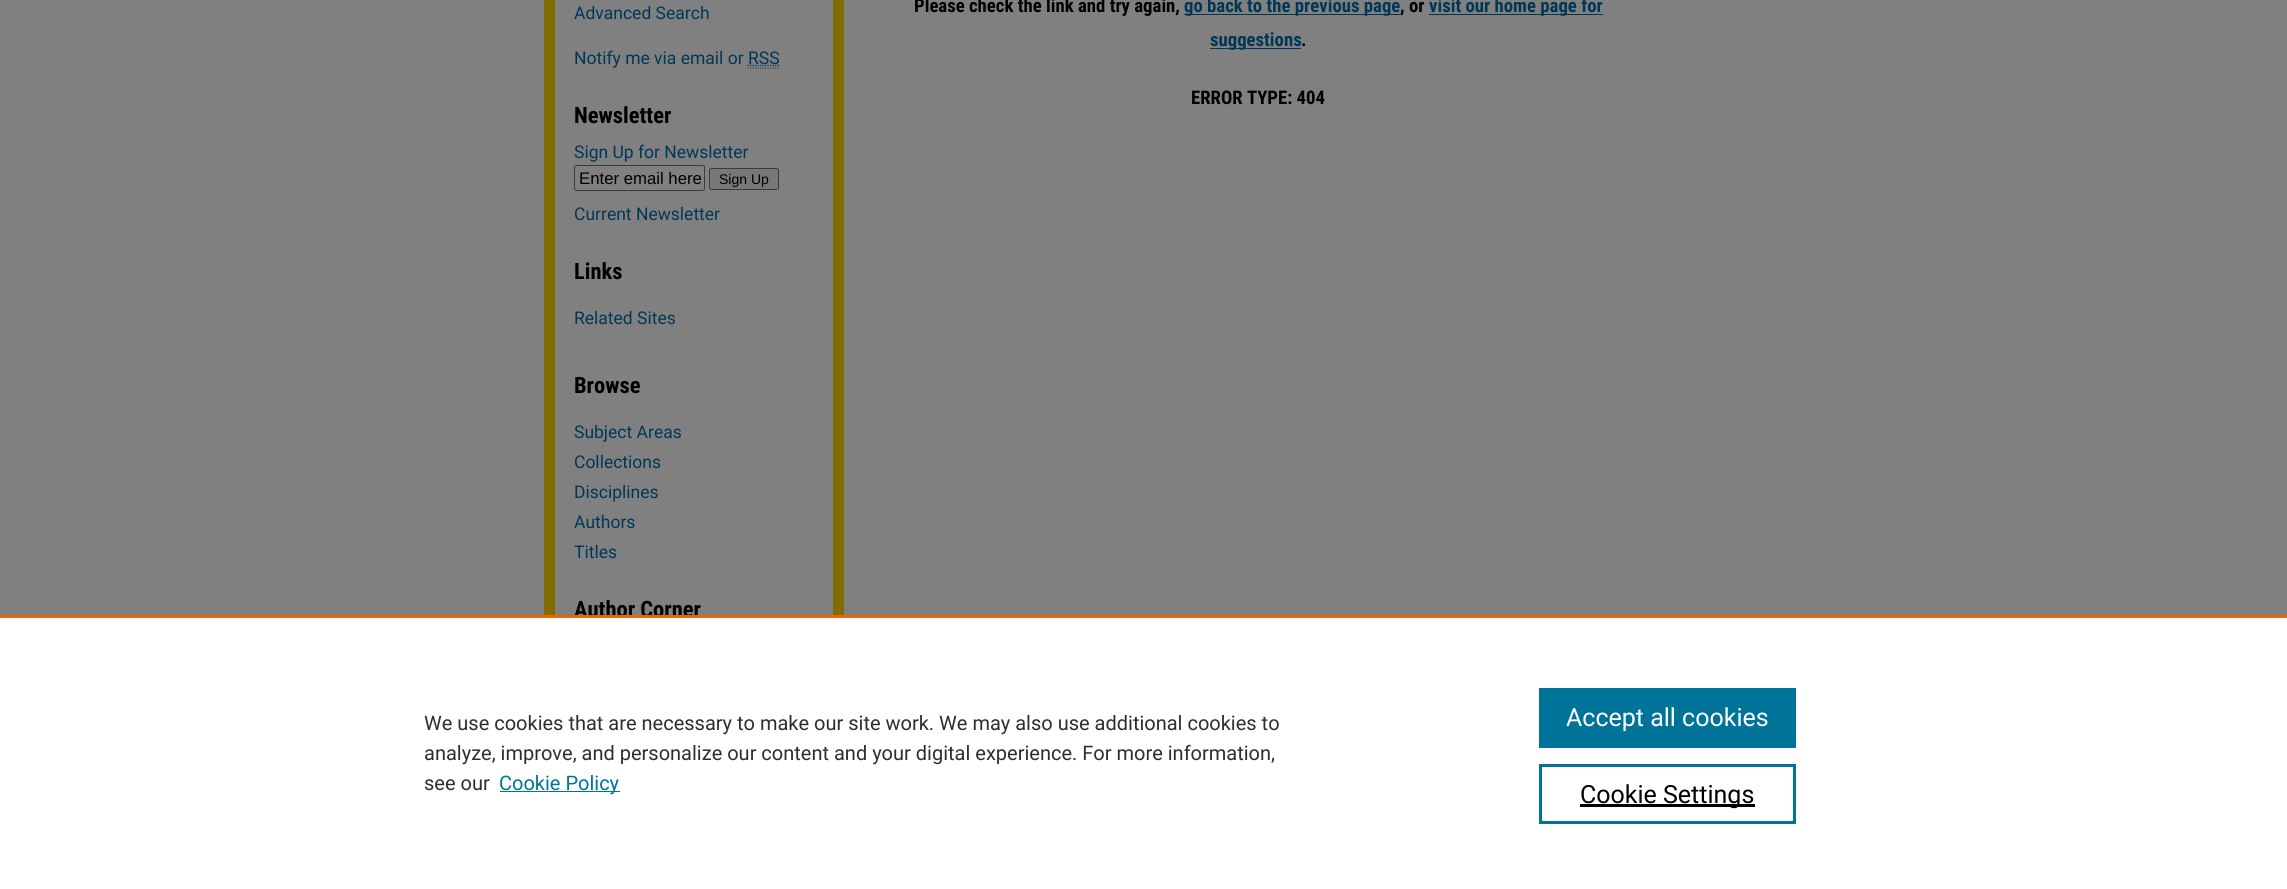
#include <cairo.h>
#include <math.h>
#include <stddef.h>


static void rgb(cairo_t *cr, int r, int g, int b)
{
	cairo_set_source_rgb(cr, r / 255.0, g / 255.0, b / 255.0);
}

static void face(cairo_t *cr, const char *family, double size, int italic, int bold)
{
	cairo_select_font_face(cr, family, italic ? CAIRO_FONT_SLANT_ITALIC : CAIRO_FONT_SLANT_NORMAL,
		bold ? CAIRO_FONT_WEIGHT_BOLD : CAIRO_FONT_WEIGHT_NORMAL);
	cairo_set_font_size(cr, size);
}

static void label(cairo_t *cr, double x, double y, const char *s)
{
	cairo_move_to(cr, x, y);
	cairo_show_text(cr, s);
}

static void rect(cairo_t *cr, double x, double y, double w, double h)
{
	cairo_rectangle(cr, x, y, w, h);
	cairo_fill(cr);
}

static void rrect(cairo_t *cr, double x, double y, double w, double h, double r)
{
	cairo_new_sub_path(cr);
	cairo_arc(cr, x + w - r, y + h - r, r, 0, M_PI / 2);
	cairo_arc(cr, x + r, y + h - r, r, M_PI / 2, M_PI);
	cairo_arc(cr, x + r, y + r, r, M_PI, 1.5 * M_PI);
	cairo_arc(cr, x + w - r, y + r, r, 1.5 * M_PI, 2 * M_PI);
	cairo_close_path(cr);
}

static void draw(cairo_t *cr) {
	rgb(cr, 128, 128, 128);
	cairo_paint(cr);
	cairo_rectangle(cr, 549.5, -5.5, 289, 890);
	rgb(cr, 128, 108, 0);
	cairo_set_line_width(cr, 11);
	cairo_stroke(cr);
	face(cr, "Roboto", 17.5, 0, 0);
	rgb(cr, 0, 55, 87);
	label(cr, 574, 19, "Advanced Search");
	label(cr, 574, 64, "Notify me via email or");
	cairo_new_path(cr);
	cairo_move_to(cr, 747.5, 65.5);
	cairo_line_to(cr, 779.5, 65.5);
	cairo_set_line_width(cr, 1.2);
	cairo_set_dash(cr, (double[]){1.25, 1.25}, 2, 0);
	cairo_stroke(cr);
	label(cr, 748, 64, "RSS");
	cairo_new_path(cr);
	cairo_move_to(cr, 747.5, 68);
	cairo_line_to(cr, 779, 68);
	rgb(cr, 77, 77, 77);
	cairo_stroke(cr);
	face(cr, "Roboto Condensed", 22.5, 0, 1);
	rgb(cr, 0, 0, 0);
	label(cr, 574, 123, "Newsletter");
	face(cr, "Roboto", 17.5, 0, 0);
	rgb(cr, 0, 55, 87);
	label(cr, 574, 158, "Sign Up for Newsletter");
	rrect(cr, 574.5, 165.5, 130, 25, 2);
	rgb(cr, 59, 59, 59);
	cairo_set_line_width(cr, 1);
	cairo_set_dash(cr, NULL, 0, 0);
	cairo_stroke(cr);
	face(cr, "Liberation Sans", 16.75, 0, 0);
	rgb(cr, 0, 0, 0);
	label(cr, 579, 184, "Enter email here");
	rgb(cr, 120, 120, 120);
	rrect(cr, 709.5, 168.5, 69, 21, 2);
	cairo_fill_preserve(cr);
	rgb(cr, 59, 59, 59);
	cairo_stroke(cr);
	face(cr, "Liberation Sans", 14, 0, 0);
	rgb(cr, 0, 0, 0);
	label(cr, 719, 184, "Sign Up");
	face(cr, "Roboto", 17.5, 0, 0);
	rgb(cr, 0, 55, 87);
	label(cr, 574, 220, "Current Newsletter");
	face(cr, "Roboto Condensed", 22.5, 0, 1);
	rgb(cr, 0, 0, 0);
	label(cr, 574, 279, "Links");
	face(cr, "Roboto", 17.5, 0, 0);
	rgb(cr, 0, 55, 87);
	label(cr, 574, 324, "Related Sites");
	face(cr, "Roboto Condensed", 22.5, 0, 1);
	rgb(cr, 0, 0, 0);
	label(cr, 574, 393, "Browse");
	face(cr, "Roboto", 17.5, 0, 0);
	rgb(cr, 0, 55, 87);
	label(cr, 574, 438, "Subject Areas");
	label(cr, 574, 468, "Collections");
	label(cr, 574, 498, "Disciplines");
	label(cr, 574, 528, "Authors");
	label(cr, 574, 558, "Titles");
	face(cr, "Roboto Condensed", 22.5, 0, 1);
	rgb(cr, 0, 0, 0);
	label(cr, 574, 617, "Author Corner");
	face(cr, "Roboto Condensed", 18.75, 0, 1);
	label(cr, 914, 12, "Please check the link and try again,");
	rgb(cr, 0, 55, 87);
	rect(cr, 1184, 14, 216, 1);
	label(cr, 1184, 12, "go back to the previous page");
	rgb(cr, 0, 0, 0);
	label(cr, 1400, 12, ", or");
	rgb(cr, 0, 55, 87);
	rect(cr, 1429, 14, 174, 1);
	label(cr, 1429, 12, "visit our home page for");
	rect(cr, 1210, 48, 91, 1);
	label(cr, 1210, 46, "suggestions");
	rgb(cr, 0, 0, 0);
	label(cr, 1301, 46, ".");
	label(cr, 1191, 104, "ERROR TYPE: 404");
	rgb(cr, 255, 255, 255);
	rect(cr, 0, 618, 2287, 271);
	rgb(cr, 235, 101, 0);
	rect(cr, 0, 615, 2287, 3);
	face(cr, "Roboto", 20, 0, 0);
	rgb(cr, 46, 46, 46);
	label(cr, 424, 730, "We use cookies that are necessary to make our site work. We may also use additional cookies to");
	label(cr, 424, 760, "analyze, improve, and personalize our content and your digital experience. For more information,");
	label(cr, 424, 790, "see our");
	rgb(cr, 0, 115, 152);
	rect(cr, 500, 791, 120, 1);
	label(cr, 499, 790, "Cookie Policy");
	rect(cr, 1539, 688, 257, 60);
	face(cr, "Roboto", 25, 0, 0);
	rgb(cr, 255, 255, 255);
	label(cr, 1566, 726, "Accept all cookies");
	cairo_rectangle(cr, 1540.5, 765.5, 254, 57);
	rgb(cr, 0, 115, 152);
	cairo_set_line_width(cr, 3);
	cairo_stroke(cr);
	rgb(cr, 0, 0, 0);
	rect(cr, 1580, 804, 175, 3);
	label(cr, 1580, 803, "Cookie Settings");
}

int main(void) {
	cairo_surface_t *surface = cairo_image_surface_create(CAIRO_FORMAT_RGB24, 2287, 889);
	cairo_t *cr = cairo_create(surface);
	cairo_font_options_t *options = cairo_font_options_create();
	cairo_font_options_set_hint_metrics(options, CAIRO_HINT_METRICS_OFF);
	cairo_font_options_set_hint_style(options, CAIRO_HINT_STYLE_NONE);
	cairo_set_font_options(cr, options);
	cairo_set_miter_limit(cr, 4);
	draw(cr);
	cairo_surface_write_to_png(surface, "render.png");
	cairo_font_options_destroy(options);
	cairo_destroy(cr);
	cairo_surface_destroy(surface);
	return 0;
}
